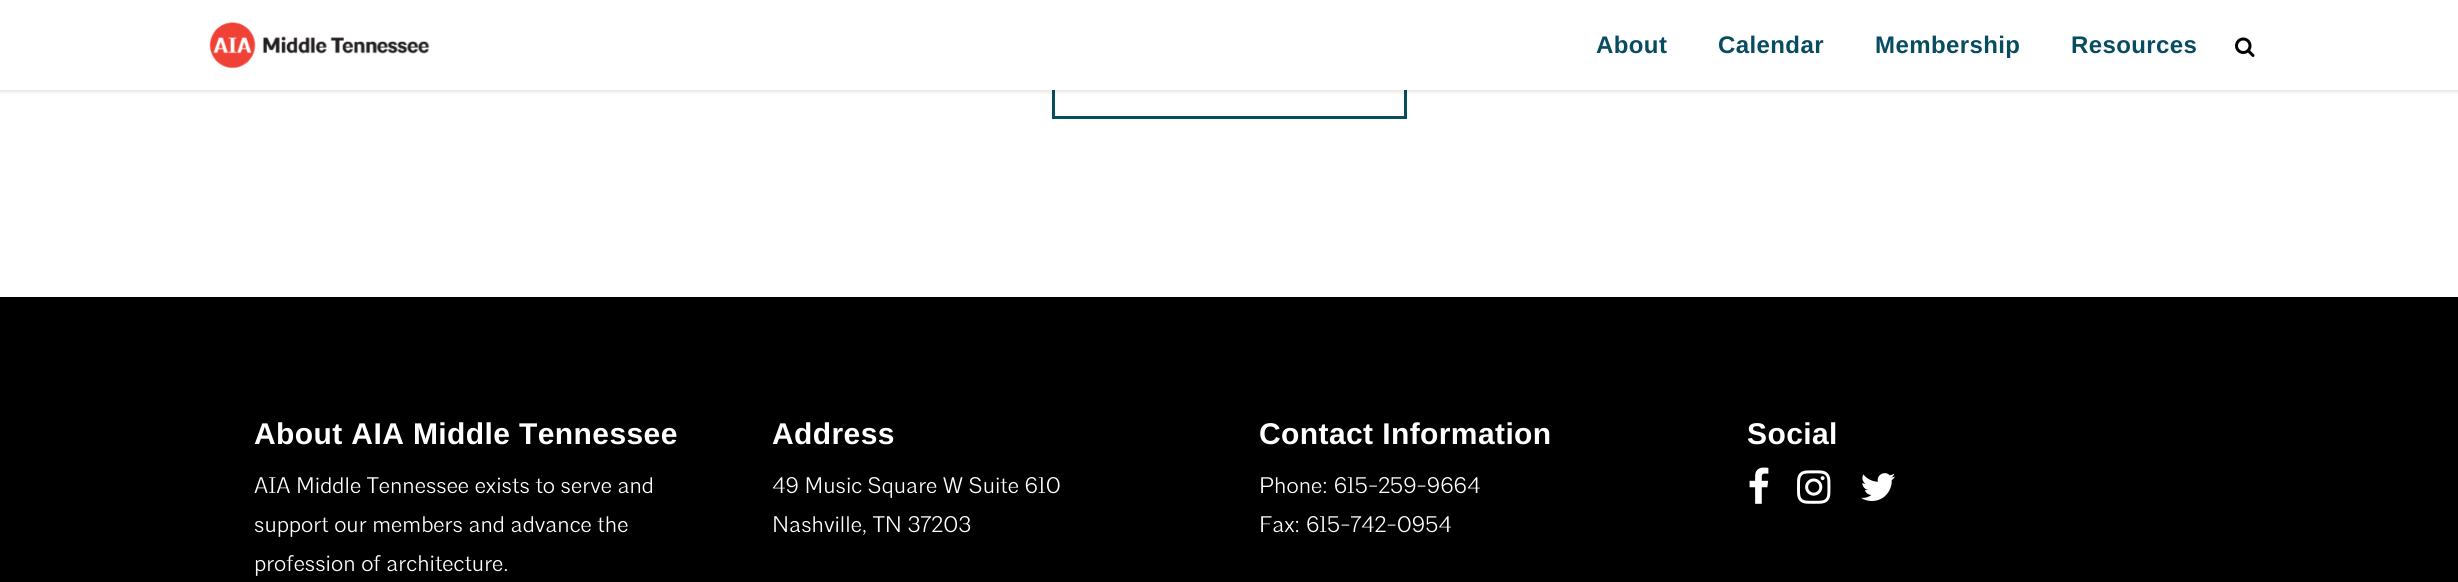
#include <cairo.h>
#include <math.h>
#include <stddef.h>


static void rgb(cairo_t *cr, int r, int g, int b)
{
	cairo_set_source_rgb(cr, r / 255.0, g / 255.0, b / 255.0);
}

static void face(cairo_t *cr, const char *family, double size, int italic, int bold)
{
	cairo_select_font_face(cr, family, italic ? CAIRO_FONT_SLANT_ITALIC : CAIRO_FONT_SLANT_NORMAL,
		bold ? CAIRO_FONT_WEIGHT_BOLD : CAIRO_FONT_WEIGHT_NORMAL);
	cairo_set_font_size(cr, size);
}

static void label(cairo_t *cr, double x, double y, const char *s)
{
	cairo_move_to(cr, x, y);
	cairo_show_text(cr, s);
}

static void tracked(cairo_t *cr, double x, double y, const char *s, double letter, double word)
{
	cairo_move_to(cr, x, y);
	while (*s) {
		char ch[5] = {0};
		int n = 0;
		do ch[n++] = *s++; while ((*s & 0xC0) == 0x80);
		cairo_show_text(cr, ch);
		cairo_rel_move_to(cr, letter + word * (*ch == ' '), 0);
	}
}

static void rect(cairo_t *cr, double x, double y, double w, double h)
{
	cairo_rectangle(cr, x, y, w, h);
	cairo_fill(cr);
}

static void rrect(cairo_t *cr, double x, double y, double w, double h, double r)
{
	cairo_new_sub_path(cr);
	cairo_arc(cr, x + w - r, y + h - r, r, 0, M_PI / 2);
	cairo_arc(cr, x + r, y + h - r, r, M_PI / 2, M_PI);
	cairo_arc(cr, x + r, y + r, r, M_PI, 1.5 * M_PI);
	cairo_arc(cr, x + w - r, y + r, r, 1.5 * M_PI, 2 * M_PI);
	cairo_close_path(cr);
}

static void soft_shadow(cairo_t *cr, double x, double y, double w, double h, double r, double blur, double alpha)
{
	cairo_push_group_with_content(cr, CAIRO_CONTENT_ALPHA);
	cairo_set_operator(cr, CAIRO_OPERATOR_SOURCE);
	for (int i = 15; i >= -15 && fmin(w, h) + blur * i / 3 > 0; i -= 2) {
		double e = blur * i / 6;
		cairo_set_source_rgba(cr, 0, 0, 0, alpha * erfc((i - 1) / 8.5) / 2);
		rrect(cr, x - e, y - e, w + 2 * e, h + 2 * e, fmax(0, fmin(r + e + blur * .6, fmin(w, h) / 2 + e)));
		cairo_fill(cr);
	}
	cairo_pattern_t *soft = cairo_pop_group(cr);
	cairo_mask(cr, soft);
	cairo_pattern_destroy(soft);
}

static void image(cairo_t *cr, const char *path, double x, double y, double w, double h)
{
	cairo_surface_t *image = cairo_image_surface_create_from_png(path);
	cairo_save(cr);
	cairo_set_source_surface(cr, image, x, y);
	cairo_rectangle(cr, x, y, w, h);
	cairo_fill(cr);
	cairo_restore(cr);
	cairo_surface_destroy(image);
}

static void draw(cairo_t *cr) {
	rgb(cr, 255, 255, 255);
	cairo_paint(cr);
	cairo_rectangle(cr, 1053.5, 60.5, 352, 57);
	rgb(cr, 8, 76, 97);
	cairo_set_line_width(cr, 3);
	cairo_stroke(cr);
	rgb(cr, 0, 0, 0);
	soft_shadow(cr, 0, 2, 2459, 90, 0, 2, 0.11);
	rgb(cr, 255, 255, 255);
	rect(cr, 0, 0, 2458, 90);
	image(cr, "image0.png", 209, 22, 221, 47);
	face(cr, "Liberation Sans", 24, 0, 1);
	rgb(cr, 8, 76, 97);
	tracked(cr, 1596, 53, "About", 0.4, 0);
	tracked(cr, 1718, 53, "Calendar", 0.4, 0);
	tracked(cr, 1875, 53, "Membership", 0.4, 0);
	tracked(cr, 2071, 53, "Resources", 0.4, 0);
	image(cr, "image1.png", 2235, 37, 20, 20);
	rgb(cr, 0, 0, 0);
	rect(cr, 0, 297, 2458, 285);
	face(cr, "Liberation Sans", 30, 0, 1);
	rgb(cr, 255, 255, 255);
	tracked(cr, 254, 444, "About AIA Middle Tennessee", 0.4, 0);
	face(cr, "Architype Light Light", 22.5, 0, 0);
	label(cr, 254, 493, "AIA Middle Tennessee exists to serve and");
	label(cr, 254, 532, "support our members and advance the");
	label(cr, 254, 571, "profession of architecture.");
	face(cr, "Liberation Sans", 30, 0, 1);
	tracked(cr, 772, 444, "Address", 0.4, 0);
	face(cr, "Architype Light Light", 22.5, 0, 0);
	label(cr, 772, 493, "49 Music Square W Suite 610");
	label(cr, 772, 532, "Nashville, TN 37203");
	face(cr, "Liberation Sans", 30, 0, 1);
	tracked(cr, 1259, 444, "Contact Information", 0.4, 0);
	face(cr, "Architype Light Light", 22.5, 0, 0);
	label(cr, 1259, 493, "Phone: 615-259-9664");
	label(cr, 1259, 532, "Fax: 615-742-0954");
	face(cr, "Liberation Sans", 30, 0, 1);
	tracked(cr, 1747, 444, "Social", 0.4, 0);
	image(cr, "image2.png", 1749, 467, 20, 37);
	image(cr, "image3.png", 1797, 470, 34, 34);
	image(cr, "image4.png", 1861, 473, 35, 28);
}

int main(void) {
	cairo_surface_t *surface = cairo_image_surface_create(CAIRO_FORMAT_RGB24, 2458, 582);
	cairo_t *cr = cairo_create(surface);
	cairo_font_options_t *options = cairo_font_options_create();
	cairo_font_options_set_hint_metrics(options, CAIRO_HINT_METRICS_OFF);
	cairo_font_options_set_hint_style(options, CAIRO_HINT_STYLE_NONE);
	cairo_set_font_options(cr, options);
	cairo_set_miter_limit(cr, 4);
	draw(cr);
	cairo_surface_write_to_png(surface, "render.png");
	cairo_font_options_destroy(options);
	cairo_destroy(cr);
	cairo_surface_destroy(surface);
	return 0;
}
